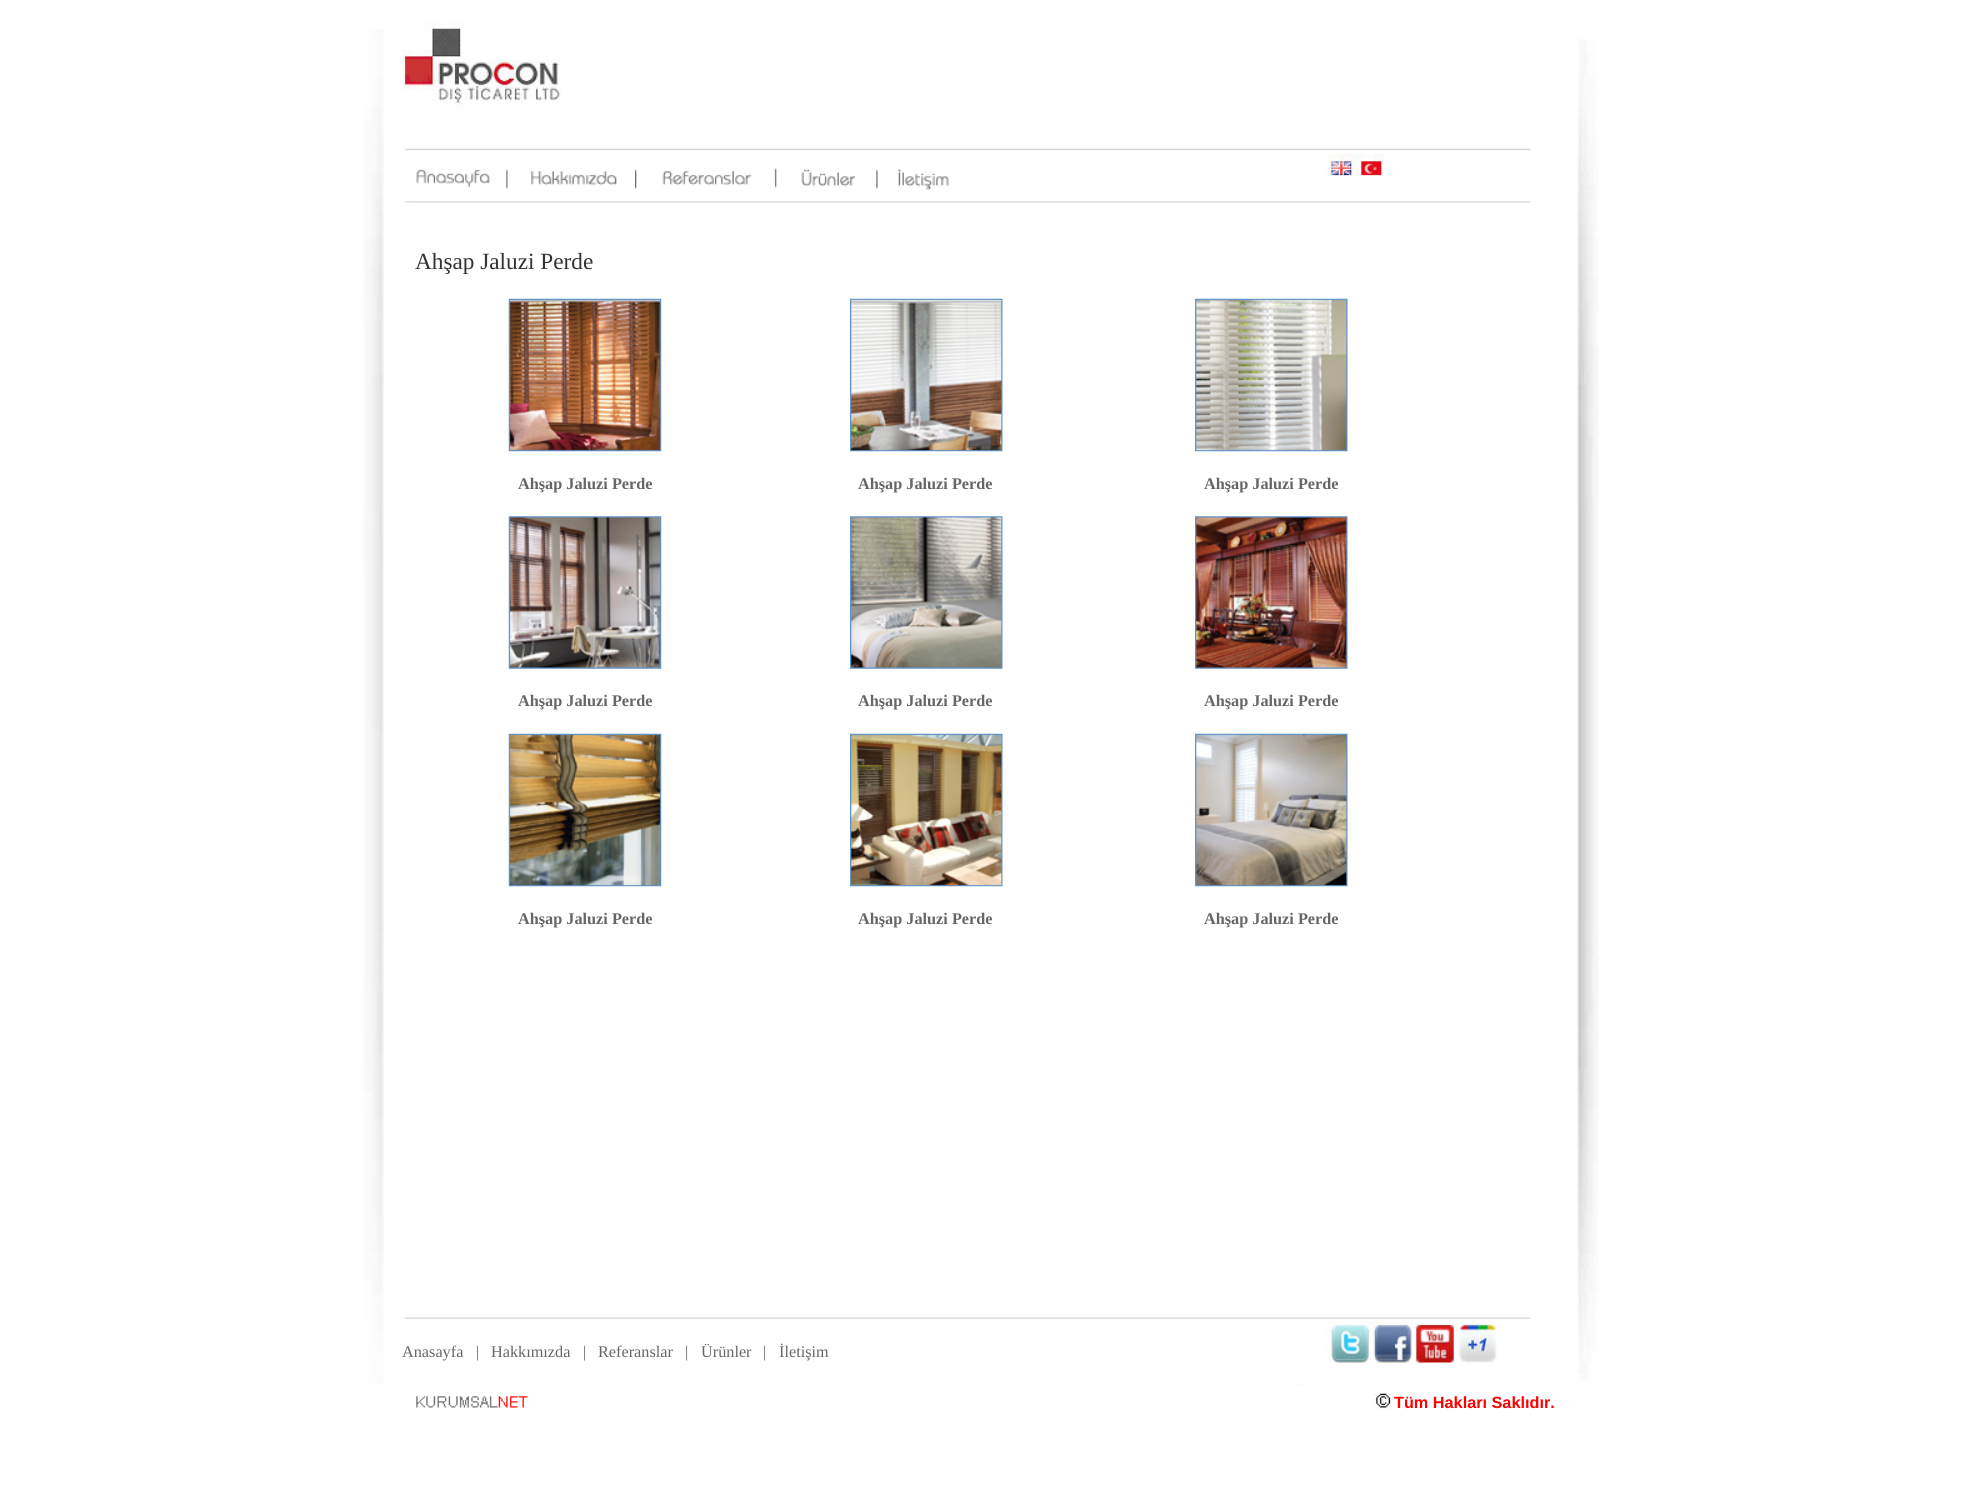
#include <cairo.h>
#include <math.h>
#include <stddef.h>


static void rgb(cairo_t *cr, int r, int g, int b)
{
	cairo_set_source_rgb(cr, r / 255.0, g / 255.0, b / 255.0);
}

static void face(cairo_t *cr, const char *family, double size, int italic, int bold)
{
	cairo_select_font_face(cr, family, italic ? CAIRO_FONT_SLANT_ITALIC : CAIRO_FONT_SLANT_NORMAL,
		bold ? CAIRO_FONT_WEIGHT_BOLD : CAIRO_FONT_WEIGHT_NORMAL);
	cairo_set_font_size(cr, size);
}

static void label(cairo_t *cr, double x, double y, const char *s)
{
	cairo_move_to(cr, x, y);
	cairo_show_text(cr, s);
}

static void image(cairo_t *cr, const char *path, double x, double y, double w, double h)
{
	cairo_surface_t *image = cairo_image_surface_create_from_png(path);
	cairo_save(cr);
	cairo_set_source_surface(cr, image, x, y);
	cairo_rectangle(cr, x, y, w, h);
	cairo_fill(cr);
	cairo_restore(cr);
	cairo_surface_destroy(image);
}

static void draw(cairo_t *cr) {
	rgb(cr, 255, 255, 255);
	cairo_paint(cr);
	image(cr, "image0.png", 363, 29, 21, 1355);
	image(cr, "image1.png", 403, 21, 158, 89);
	image(cr, "image2.png", 404, 148, 1127, 3);
	image(cr, "image3.png", 1327, 153, 27, 23);
	image(cr, "image4.png", 1354, 153, 30, 23);
	image(cr, "image5.png", 416, 169, 75, 19);
	image(cr, "image6.png", 506, 169, 2, 20);
	image(cr, "image7.png", 531, 171, 86, 15);
	image(cr, "image8.png", 635, 169, 2, 20);
	image(cr, "image9.png", 662, 171, 90, 15);
	image(cr, "image10.png", 774, 168, 3, 20);
	image(cr, "image11.png", 801, 168, 55, 19);
	image(cr, "image12.png", 876, 169, 2, 20);
	image(cr, "image13.png", 897, 168, 52, 23);
	image(cr, "image14.png", 405, 201, 1126, 2);
	image(cr, "image15.png", 1577, 39, 22, 1342);
	face(cr, "Liberation Serif", 23.25, 0, 0);
	rgb(cr, 51, 51, 51);
	label(cr, 415, 269, "Ahşap Jaluzi Perde");
	image(cr, "image16.png", 508, 298, 154, 154);
	image(cr, "image17.png", 850, 298, 153, 154);
	image(cr, "image18.png", 1195, 298, 153, 154);
	face(cr, "Liberation Serif", 16.25, 0, 1);
	rgb(cr, 102, 102, 102);
	label(cr, 518, 489, "Ahşap Jaluzi Perde");
	label(cr, 858, 489, "Ahşap Jaluzi Perde");
	label(cr, 1204, 489, "Ahşap Jaluzi Perde");
	image(cr, "image19.png", 508, 516, 154, 153);
	image(cr, "image20.png", 850, 516, 153, 153);
	image(cr, "image21.png", 1195, 516, 153, 153);
	label(cr, 518, 706, "Ahşap Jaluzi Perde");
	label(cr, 858, 706, "Ahşap Jaluzi Perde");
	label(cr, 1204, 706, "Ahşap Jaluzi Perde");
	image(cr, "image22.png", 508, 733, 154, 154);
	image(cr, "image23.png", 850, 733, 153, 154);
	image(cr, "image24.png", 1195, 733, 153, 154);
	label(cr, 518, 924, "Ahşap Jaluzi Perde");
	label(cr, 858, 924, "Ahşap Jaluzi Perde");
	label(cr, 1204, 924, "Ahşap Jaluzi Perde");
	image(cr, "image25.png", 404, 1317, 1127, 2);
	face(cr, "Liberation Serif", 16.25, 0, 0);
	label(cr, 402, 1357, "Anasayfa");
	label(cr, 476, 1357, "|");
	label(cr, 491, 1357, "Hakkımızda");
	label(cr, 583, 1357, "|");
	label(cr, 598, 1357, "Referanslar");
	label(cr, 685, 1357, "|");
	label(cr, 701, 1357, "Ürünler");
	label(cr, 763, 1357, "|");
	label(cr, 779, 1357, "İletişim");
	image(cr, "image26.png", 1326, 1321, 47, 42);
	image(cr, "image27.png", 1372, 1321, 41, 42);
	image(cr, "image28.png", 1414, 1321, 40, 44);
	image(cr, "image29.png", 1456, 1321, 41, 42);
	image(cr, "image30.png", 1295, 1384, 11, 2);
	image(cr, "image31.png", 416, 1396, 112, 12);
	image(cr, "image32.png", 1373, 1393, 18, 16);
	face(cr, "Liberation Sans", 16.25, 0, 1);
	rgb(cr, 255, 0, 0);
	label(cr, 1394, 1408, "Tüm Hakları Saklıdır.");
}

int main(void) {
	cairo_surface_t *surface = cairo_image_surface_create(CAIRO_FORMAT_RGB24, 1980, 1496);
	cairo_t *cr = cairo_create(surface);
	cairo_font_options_t *options = cairo_font_options_create();
	cairo_font_options_set_hint_metrics(options, CAIRO_HINT_METRICS_OFF);
	cairo_font_options_set_hint_style(options, CAIRO_HINT_STYLE_NONE);
	cairo_set_font_options(cr, options);
	cairo_set_miter_limit(cr, 4);
	draw(cr);
	cairo_surface_write_to_png(surface, "render.png");
	cairo_font_options_destroy(options);
	cairo_destroy(cr);
	cairo_surface_destroy(surface);
	return 0;
}
